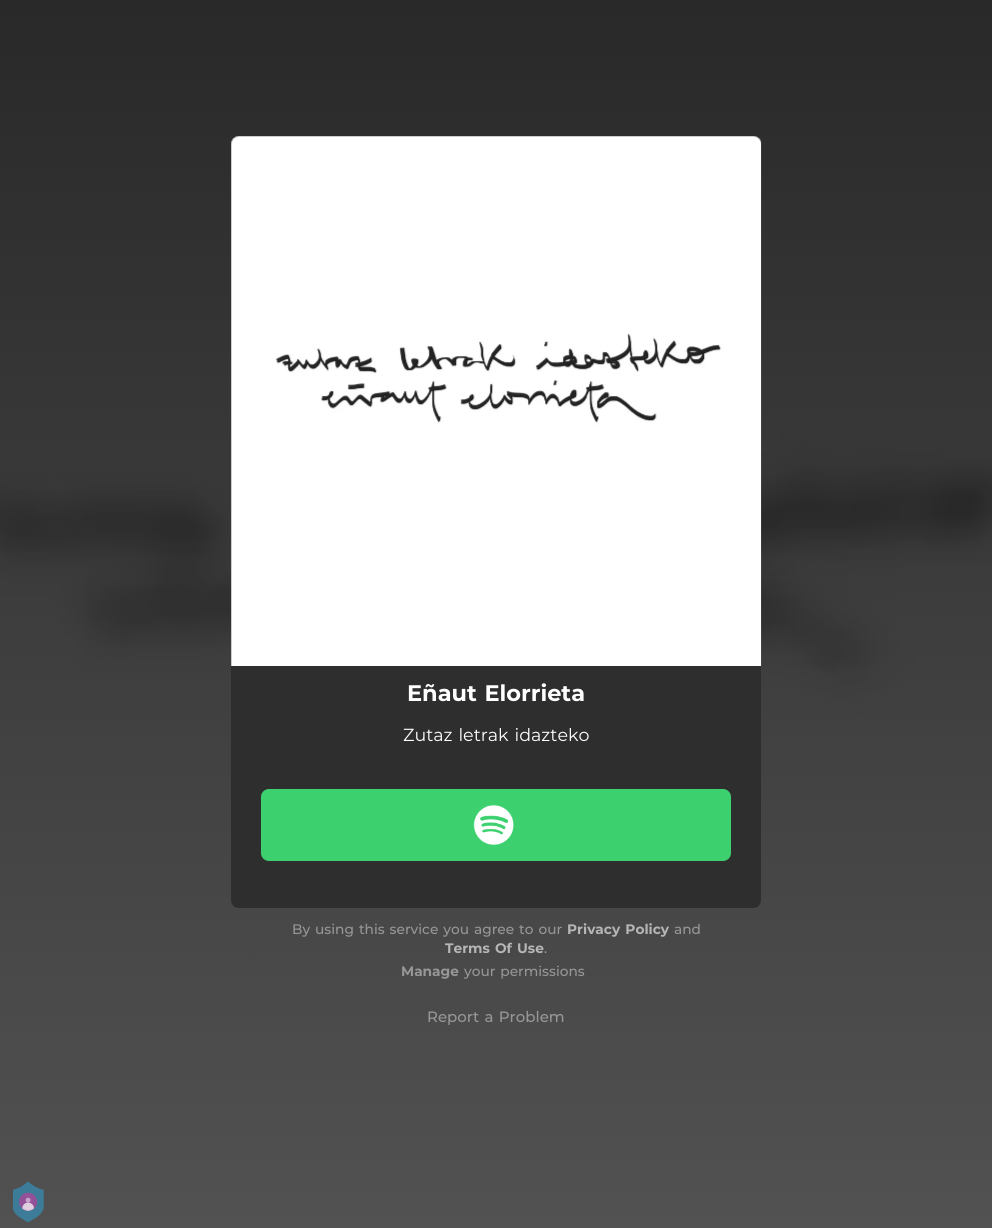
#include <cairo.h>
#include <math.h>
#include <stddef.h>


static void rgb(cairo_t *cr, int r, int g, int b)
{
	cairo_set_source_rgb(cr, r / 255.0, g / 255.0, b / 255.0);
}

static void face(cairo_t *cr, const char *family, double size, int italic, int bold)
{
	cairo_select_font_face(cr, family, italic ? CAIRO_FONT_SLANT_ITALIC : CAIRO_FONT_SLANT_NORMAL,
		bold ? CAIRO_FONT_WEIGHT_BOLD : CAIRO_FONT_WEIGHT_NORMAL);
	cairo_set_font_size(cr, size);
}

static void label(cairo_t *cr, double x, double y, const char *s)
{
	cairo_move_to(cr, x, y);
	cairo_show_text(cr, s);
}

static void tracked(cairo_t *cr, double x, double y, const char *s, double letter, double word)
{
	cairo_move_to(cr, x, y);
	while (*s) {
		char ch[5] = {0};
		int n = 0;
		do ch[n++] = *s++; while ((*s & 0xC0) == 0x80);
		cairo_show_text(cr, ch);
		cairo_rel_move_to(cr, letter + word * (*ch == ' '), 0);
	}
}

static void rrect(cairo_t *cr, double x, double y, double w, double h, double r)
{
	cairo_new_sub_path(cr);
	cairo_arc(cr, x + w - r, y + h - r, r, 0, M_PI / 2);
	cairo_arc(cr, x + r, y + h - r, r, M_PI / 2, M_PI);
	cairo_arc(cr, x + r, y + r, r, M_PI, 1.5 * M_PI);
	cairo_arc(cr, x + w - r, y + r, r, 1.5 * M_PI, 2 * M_PI);
	cairo_close_path(cr);
}

static void image(cairo_t *cr, const char *path, double x, double y, double w, double h)
{
	cairo_surface_t *image = cairo_image_surface_create_from_png(path);
	cairo_save(cr);
	cairo_set_source_surface(cr, image, x, y);
	cairo_rectangle(cr, x, y, w, h);
	cairo_fill(cr);
	cairo_restore(cr);
	cairo_surface_destroy(image);
}

static void draw(cairo_t *cr) {
	rgb(cr, 255, 255, 255);
	cairo_paint(cr);
	image(cr, "image0.png", 0, 0, 992, 1228);
	rgb(cr, 47, 47, 47);
	cairo_new_path(cr);
	cairo_move_to(cr, 239, 136);
	cairo_line_to(cr, 753, 136);
	cairo_curve_to(cr, 757.5, 136, 761, 139.5, 761, 144);
	cairo_line_to(cr, 761, 666);
	cairo_line_to(cr, 231, 666);
	cairo_line_to(cr, 231, 144);
	cairo_curve_to(cr, 231, 139.5, 234.5, 136, 239, 136);
	cairo_close_path(cr);
	cairo_fill(cr);
	image(cr, "image1.png", 231, 136, 531, 530);
	rgb(cr, 46, 46, 46);
	cairo_new_path(cr);
	cairo_move_to(cr, 231, 666);
	cairo_line_to(cr, 761, 666);
	cairo_line_to(cr, 761, 900);
	cairo_curve_to(cr, 761, 904.5, 757.5, 908, 753, 908);
	cairo_line_to(cr, 239, 908);
	cairo_curve_to(cr, 234.5, 908, 231, 904.5, 231, 900);
	cairo_close_path(cr);
	cairo_fill(cr);
	face(cr, "Montserrat", 22.5, 0, 1);
	rgb(cr, 255, 255, 255);
	tracked(cr, 407, 701, "Eñaut Elorrieta", 0, 1.25);
	face(cr, "Montserrat", 17.5, 0, 0);
	tracked(cr, 403, 741, "Zutaz letrak idazteko", 0, 1.25);
	rgb(cr, 60, 209, 110);
	rrect(cr, 261, 789, 470, 72, 8);
	cairo_fill(cr);
	image(cr, "image2.png", 473, 805, 41, 40);
	face(cr, "Montserrat Medium", 13.75, 0, 0);
	rgb(cr, 151, 151, 151);
	tracked(cr, 292, 934, "By using this service you agree to our", 0, 1.25);
	face(cr, "Montserrat", 13.75, 0, 1);
	rgb(cr, 182, 182, 182);
	tracked(cr, 567, 934, "Privacy Policy", 0, 1.25);
	face(cr, "Montserrat Medium", 13.75, 0, 0);
	rgb(cr, 151, 151, 151);
	label(cr, 674, 934, "and");
	face(cr, "Montserrat", 13.75, 0, 1);
	rgb(cr, 182, 182, 182);
	tracked(cr, 445, 953, "Terms Of Use", 0, 1.25);
	face(cr, "Montserrat Medium", 13.75, 0, 0);
	rgb(cr, 151, 151, 151);
	label(cr, 544, 953, ".");
	face(cr, "Montserrat", 13.75, 0, 1);
	label(cr, 401, 976, "Manage");
	face(cr, "Montserrat Medium", 13.75, 0, 0);
	tracked(cr, 464, 976, "your permissions", 0, 1.25);
	face(cr, "Montserrat Medium", 15, 0, 0);
	tracked(cr, 427, 1022, "Report a Problem", 0, 1.25);
	image(cr, "image3.png", 13, 1181, 31, 42);
}

int main(void) {
	cairo_surface_t *surface = cairo_image_surface_create(CAIRO_FORMAT_RGB24, 992, 1228);
	cairo_t *cr = cairo_create(surface);
	cairo_font_options_t *options = cairo_font_options_create();
	cairo_font_options_set_hint_metrics(options, CAIRO_HINT_METRICS_OFF);
	cairo_font_options_set_hint_style(options, CAIRO_HINT_STYLE_NONE);
	cairo_set_font_options(cr, options);
	cairo_set_miter_limit(cr, 4);
	draw(cr);
	cairo_surface_write_to_png(surface, "render.png");
	cairo_font_options_destroy(options);
	cairo_destroy(cr);
	cairo_surface_destroy(surface);
	return 0;
}
